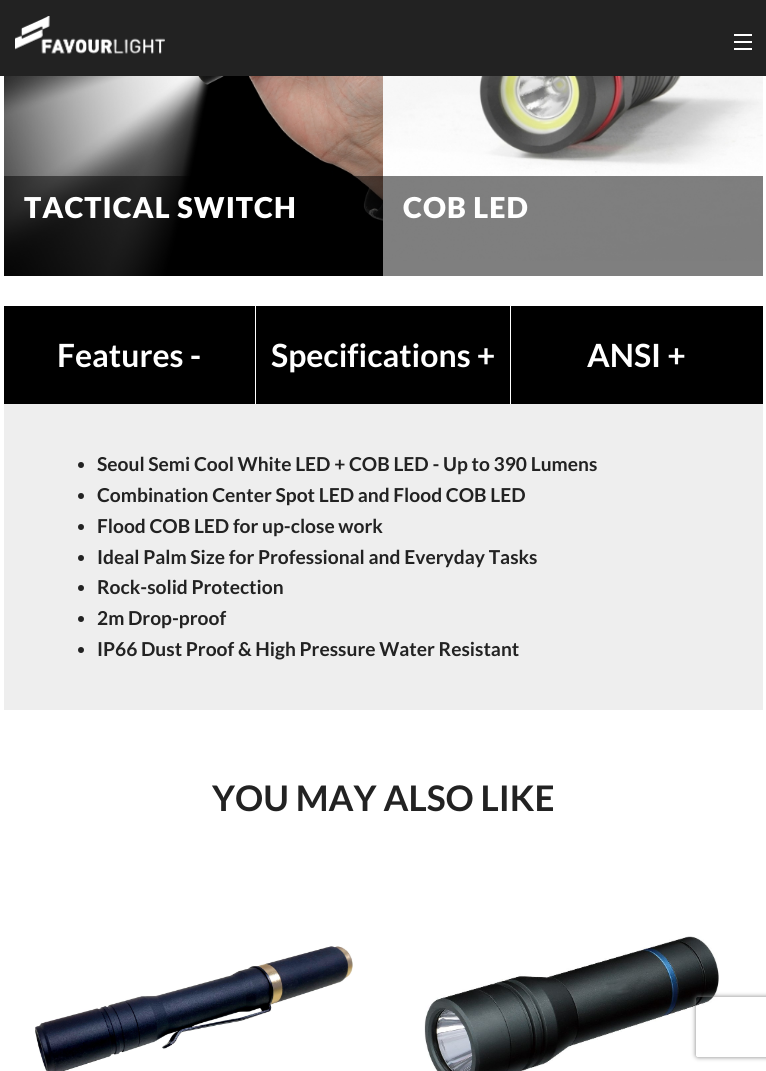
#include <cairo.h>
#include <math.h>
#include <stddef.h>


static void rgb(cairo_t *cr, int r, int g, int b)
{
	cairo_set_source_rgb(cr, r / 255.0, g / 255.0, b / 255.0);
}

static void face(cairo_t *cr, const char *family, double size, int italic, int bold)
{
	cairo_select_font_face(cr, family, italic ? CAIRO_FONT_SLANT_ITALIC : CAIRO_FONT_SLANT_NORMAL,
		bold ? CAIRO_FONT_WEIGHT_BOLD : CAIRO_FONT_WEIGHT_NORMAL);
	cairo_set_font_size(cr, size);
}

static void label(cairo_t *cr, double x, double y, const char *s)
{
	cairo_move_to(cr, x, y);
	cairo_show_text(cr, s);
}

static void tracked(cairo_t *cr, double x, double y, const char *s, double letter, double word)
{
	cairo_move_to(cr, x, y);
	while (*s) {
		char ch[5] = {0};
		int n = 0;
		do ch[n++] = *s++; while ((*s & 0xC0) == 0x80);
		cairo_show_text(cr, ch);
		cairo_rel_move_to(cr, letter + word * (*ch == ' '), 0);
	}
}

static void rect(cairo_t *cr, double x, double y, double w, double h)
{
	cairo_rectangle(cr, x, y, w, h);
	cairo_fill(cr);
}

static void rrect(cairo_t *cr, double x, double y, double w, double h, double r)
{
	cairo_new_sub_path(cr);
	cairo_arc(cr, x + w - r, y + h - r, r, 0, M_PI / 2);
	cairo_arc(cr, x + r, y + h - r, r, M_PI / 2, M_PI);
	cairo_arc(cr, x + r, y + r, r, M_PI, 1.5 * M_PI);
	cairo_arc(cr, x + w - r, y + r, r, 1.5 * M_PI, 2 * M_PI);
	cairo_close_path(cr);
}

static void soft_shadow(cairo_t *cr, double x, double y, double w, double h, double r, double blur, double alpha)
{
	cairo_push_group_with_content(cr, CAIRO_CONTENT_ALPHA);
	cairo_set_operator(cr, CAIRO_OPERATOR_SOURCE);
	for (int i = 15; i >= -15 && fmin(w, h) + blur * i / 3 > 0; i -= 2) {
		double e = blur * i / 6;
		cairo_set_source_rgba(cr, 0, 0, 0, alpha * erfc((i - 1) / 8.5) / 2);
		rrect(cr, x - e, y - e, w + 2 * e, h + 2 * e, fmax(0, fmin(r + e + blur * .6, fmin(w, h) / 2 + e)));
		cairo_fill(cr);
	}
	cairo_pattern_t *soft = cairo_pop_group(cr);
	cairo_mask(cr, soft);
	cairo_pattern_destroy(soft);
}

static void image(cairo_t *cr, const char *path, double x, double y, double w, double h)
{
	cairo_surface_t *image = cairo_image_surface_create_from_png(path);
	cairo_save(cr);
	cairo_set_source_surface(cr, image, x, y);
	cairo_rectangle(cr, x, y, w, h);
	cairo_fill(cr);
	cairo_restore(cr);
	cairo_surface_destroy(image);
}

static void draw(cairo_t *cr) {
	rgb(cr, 255, 255, 255);
	cairo_paint(cr);
	rgb(cr, 34, 34, 34);
	rect(cr, 0, 0, 766, 76);
	image(cr, "image0.png", 15, 16, 150, 38);
	rgb(cr, 255, 255, 255);
	rect(cr, 734, 48, 18, 2);
	rect(cr, 734, 41, 18, 2);
	rect(cr, 734, 34, 18, 2);
	image(cr, "image1.png", 4, 76, 379, 200);
	cairo_set_source_rgba(cr, 0, 0, 0, 0.5);
	rect(cr, 4, 176, 379, 100);
	face(cr, "Lato Black", 28.75, 0, 0);
	rgb(cr, 255, 255, 255);
	tracked(cr, 24, 218, "TACTICAL SWITCH", 1, 0);
	image(cr, "image2.png", 383, 76, 380, 185);
	cairo_set_source_rgba(cr, 0, 0, 0, 0.5);
	rect(cr, 383, 176, 380, 100);
	rgb(cr, 255, 255, 255);
	tracked(cr, 403, 218, "COB LED", 1, 0);
	rgb(cr, 0, 0, 0);
	rect(cr, 4, 306, 251, 98);
	face(cr, "Lato", 32, 0, 1);
	rgb(cr, 255, 255, 255);
	label(cr, 57, 367, "Features -");
	rgb(cr, 0, 0, 0);
	rect(cr, 256, 306, 254, 98);
	rgb(cr, 255, 255, 255);
	label(cr, 271, 367, "Specifications +");
	rgb(cr, 0, 0, 0);
	rect(cr, 511, 306, 252, 98);
	rgb(cr, 255, 255, 255);
	label(cr, 587, 367, "ANSI +");
	rgb(cr, 238, 238, 238);
	rect(cr, 4, 404, 759, 306);
	rgb(cr, 34, 34, 34);
	cairo_new_path(cr);
	cairo_arc(cr, 81, 465, 3, 0, 2 * M_PI);
	cairo_fill(cr);
	face(cr, "Lato", 19.2, 0, 1);
	label(cr, 97, 471, "Seoul Semi Cool White LED + COB LED - Up to 390 Lumens");
	cairo_new_path(cr);
	cairo_arc(cr, 81, 496, 3, 0, 2 * M_PI);
	cairo_fill(cr);
	label(cr, 97, 502, "Combination Center Spot LED and Flood COB LED");
	cairo_new_path(cr);
	cairo_arc(cr, 81, 527, 3, 0, 2 * M_PI);
	cairo_fill(cr);
	label(cr, 97, 533, "Flood COB LED for up-close work");
	cairo_new_path(cr);
	cairo_arc(cr, 81, 558, 3, 0, 2 * M_PI);
	cairo_fill(cr);
	label(cr, 97, 564, "Ideal Palm Size for Professional and Everyday Tasks");
	cairo_new_path(cr);
	cairo_arc(cr, 81, 588, 3, 0, 2 * M_PI);
	cairo_fill(cr);
	label(cr, 97, 594, "Rock-solid Protection");
	cairo_new_path(cr);
	cairo_arc(cr, 81, 619, 3, 0, 2 * M_PI);
	cairo_fill(cr);
	label(cr, 97, 625, "2m Drop-proof");
	cairo_new_path(cr);
	cairo_arc(cr, 81, 650, 3, 0, 2 * M_PI);
	cairo_fill(cr);
	label(cr, 97, 656, "IP66 Dust Proof & High Pressure Water Resistant");
	face(cr, "Lato", 35.25, 0, 1);
	label(cr, 212, 811, "YOU MAY ALSO LIKE");
	image(cr, "image3.png", 35, 946, 318, 125);
	image(cr, "image4.png", 424, 936, 295, 135);
	cairo_save(cr);
	cairo_set_fill_rule(cr, CAIRO_FILL_RULE_EVEN_ODD);
	cairo_new_path(cr);
	cairo_move_to(cr, 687, 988);
	cairo_line_to(cr, 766, 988);
	cairo_line_to(cr, 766, 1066);
	cairo_line_to(cr, 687, 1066);
	cairo_close_path(cr);
	cairo_move_to(cr, 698, 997);
	cairo_line_to(cr, 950, 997);
	cairo_curve_to(cr, 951, 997, 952, 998, 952, 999);
	cairo_line_to(cr, 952, 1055);
	cairo_curve_to(cr, 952, 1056, 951, 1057, 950, 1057);
	cairo_line_to(cr, 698, 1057);
	cairo_curve_to(cr, 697, 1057, 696, 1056, 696, 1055);
	cairo_line_to(cr, 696, 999);
	cairo_curve_to(cr, 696, 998, 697, 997, 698, 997);
	cairo_close_path(cr);
	cairo_clip(cr);
	rgb(cr, 128, 128, 128);
	soft_shadow(cr, 696, 997, 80, 60, 2, 2.5, 1);
	cairo_restore(cr);
}

int main(void) {
	cairo_surface_t *surface = cairo_image_surface_create(CAIRO_FORMAT_RGB24, 766, 1071);
	cairo_t *cr = cairo_create(surface);
	cairo_font_options_t *options = cairo_font_options_create();
	cairo_font_options_set_hint_metrics(options, CAIRO_HINT_METRICS_OFF);
	cairo_font_options_set_hint_style(options, CAIRO_HINT_STYLE_NONE);
	cairo_set_font_options(cr, options);
	cairo_set_miter_limit(cr, 4);
	draw(cr);
	cairo_surface_write_to_png(surface, "render.png");
	cairo_font_options_destroy(options);
	cairo_destroy(cr);
	cairo_surface_destroy(surface);
	return 0;
}
